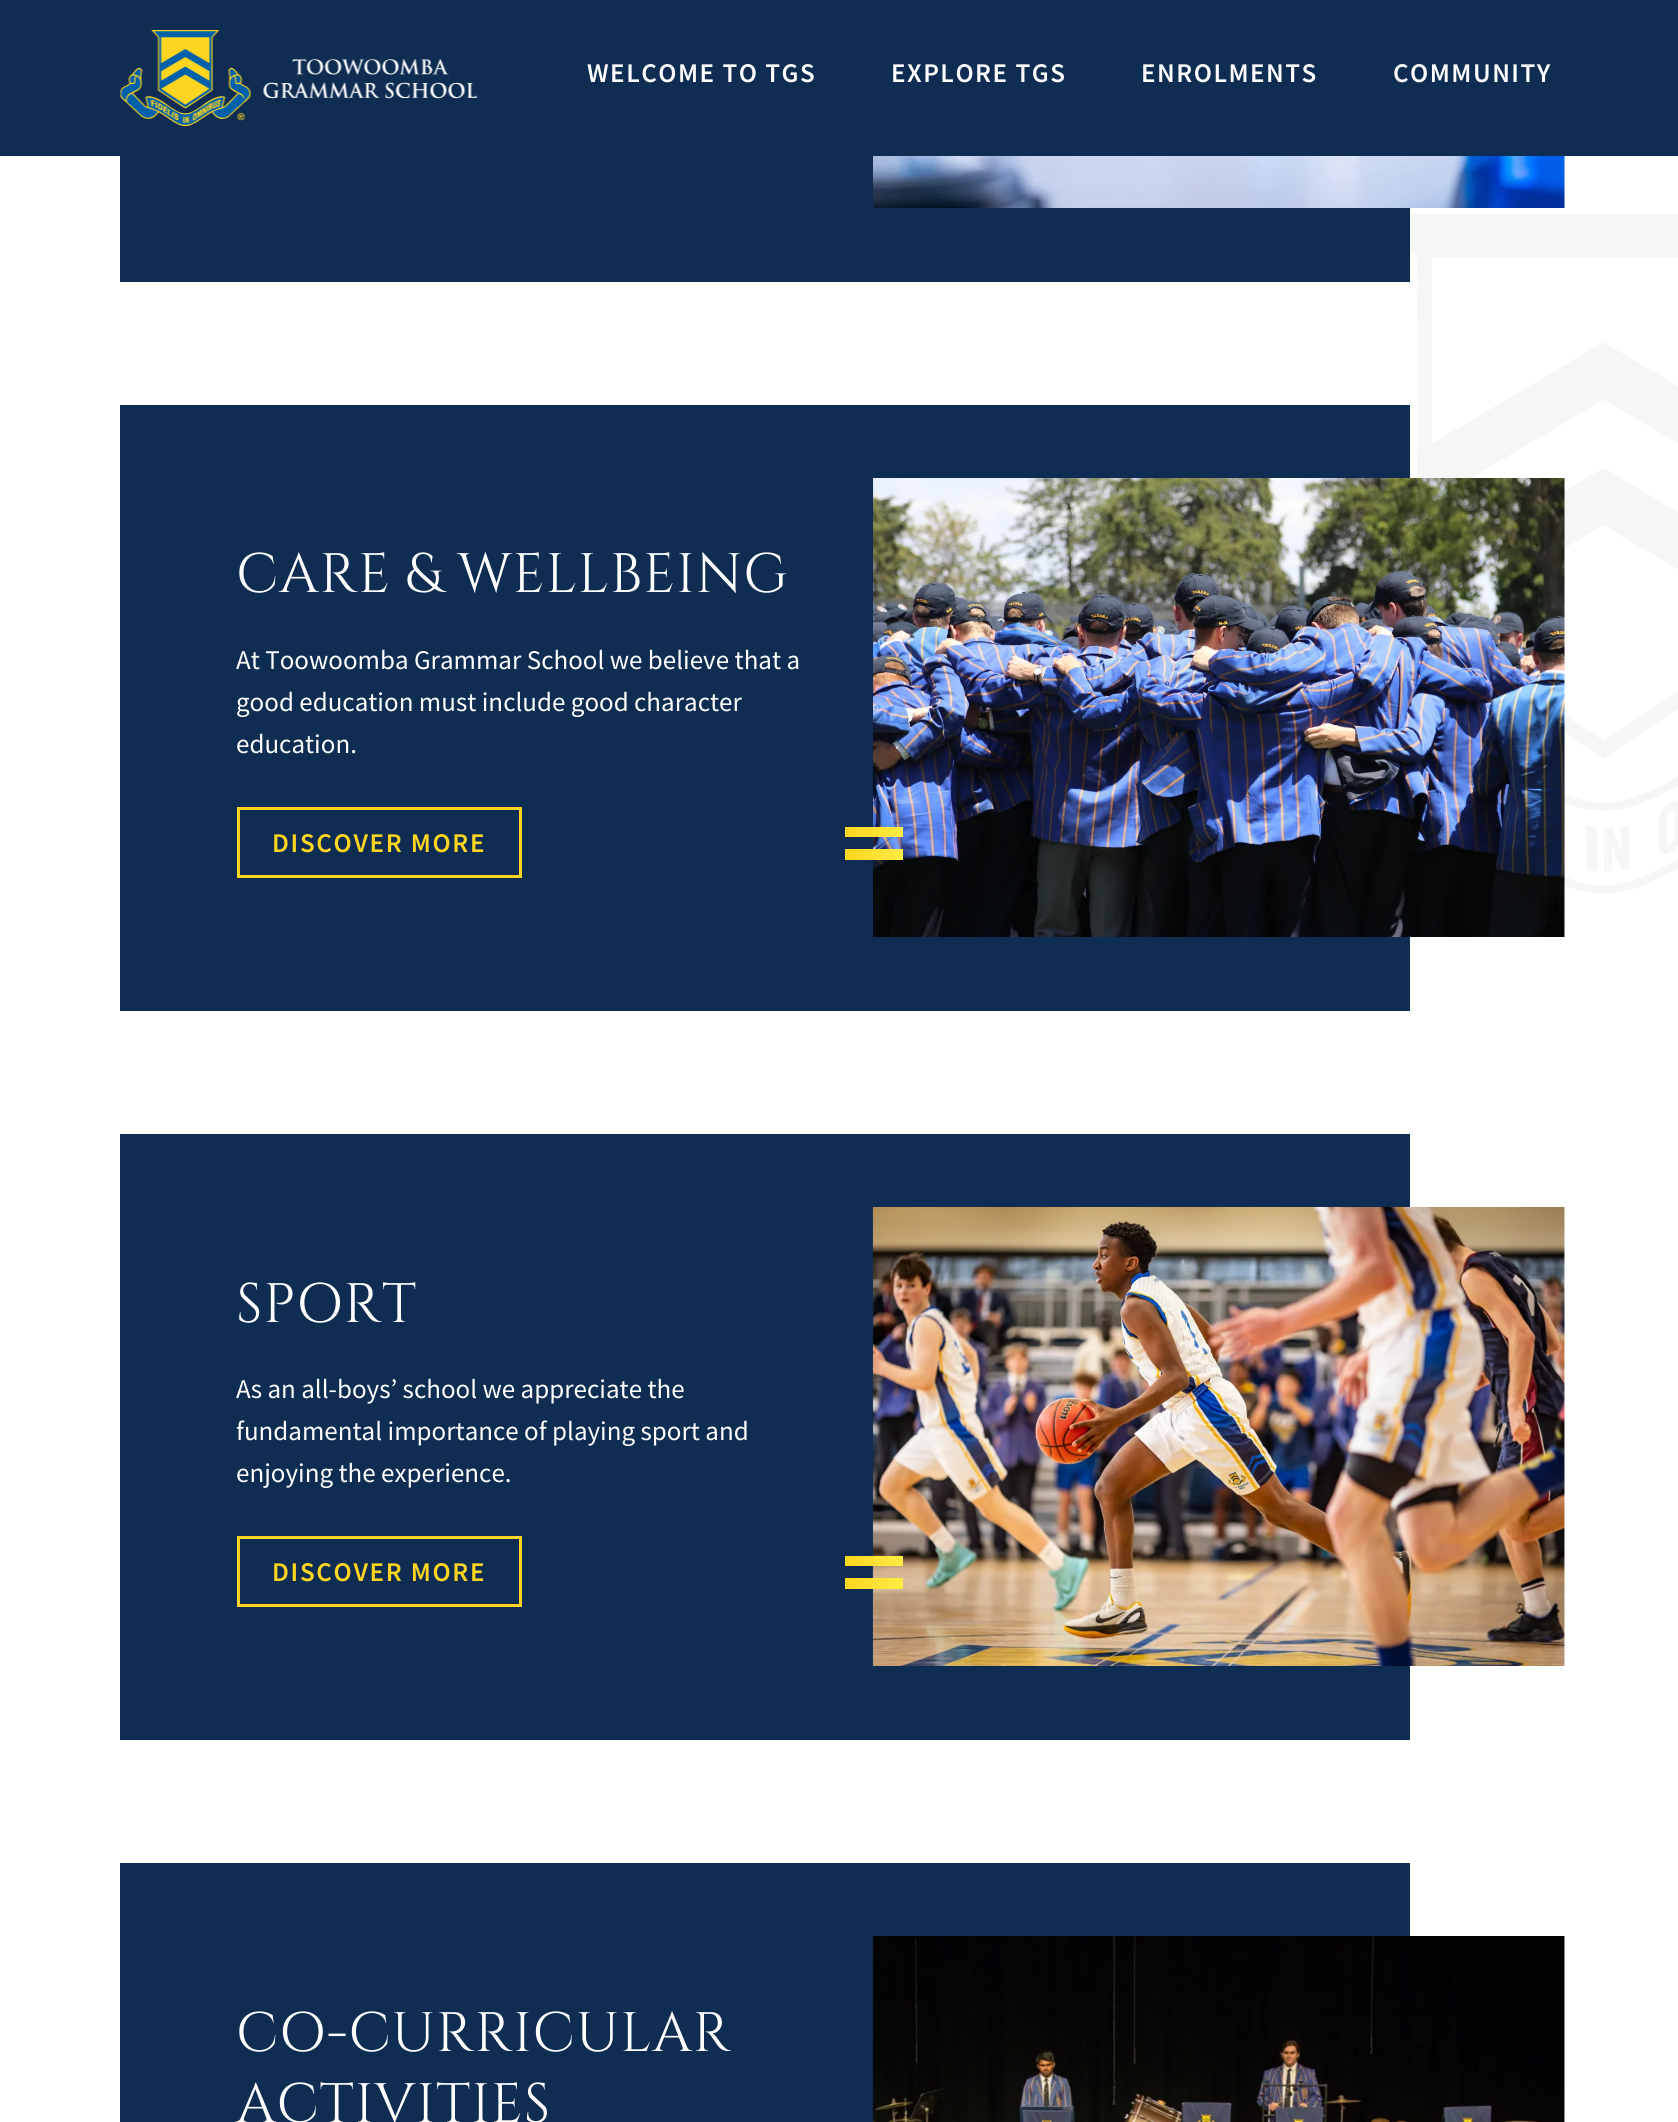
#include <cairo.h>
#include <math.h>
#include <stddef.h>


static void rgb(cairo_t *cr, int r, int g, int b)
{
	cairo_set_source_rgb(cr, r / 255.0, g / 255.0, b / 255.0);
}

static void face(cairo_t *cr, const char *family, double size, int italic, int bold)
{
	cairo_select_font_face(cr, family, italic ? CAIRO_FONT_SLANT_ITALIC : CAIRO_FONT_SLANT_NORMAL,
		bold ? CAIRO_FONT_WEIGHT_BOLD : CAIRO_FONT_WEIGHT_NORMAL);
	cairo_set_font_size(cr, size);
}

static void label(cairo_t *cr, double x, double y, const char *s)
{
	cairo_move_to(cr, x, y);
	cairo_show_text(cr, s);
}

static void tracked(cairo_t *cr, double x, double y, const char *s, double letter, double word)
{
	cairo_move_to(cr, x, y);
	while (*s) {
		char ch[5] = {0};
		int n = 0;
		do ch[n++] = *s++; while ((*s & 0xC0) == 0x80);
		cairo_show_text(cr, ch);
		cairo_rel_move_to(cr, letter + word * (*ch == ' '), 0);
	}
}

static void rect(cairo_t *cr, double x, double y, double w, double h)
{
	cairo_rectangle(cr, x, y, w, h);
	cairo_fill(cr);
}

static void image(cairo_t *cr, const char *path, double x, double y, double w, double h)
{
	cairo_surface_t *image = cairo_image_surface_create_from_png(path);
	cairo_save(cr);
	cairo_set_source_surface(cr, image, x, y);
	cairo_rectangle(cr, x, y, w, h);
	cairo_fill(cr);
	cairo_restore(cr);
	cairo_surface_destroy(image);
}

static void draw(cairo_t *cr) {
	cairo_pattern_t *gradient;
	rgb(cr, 255, 255, 255);
	cairo_paint(cr);
	rgb(cr, 15, 45, 82);
	rect(cr, 0, 0, 1678, 156);
	image(cr, "image0.png", 120, 30, 358, 96);
	face(cr, "Source Sans Pro SemiBold", 27, 0, 0);
	rgb(cr, 255, 255, 255);
	tracked(cr, 587, 82, "WELCOME TO TGS", 1.5, 0);
	tracked(cr, 891, 82, "EXPLORE TGS", 1.5, 0);
	tracked(cr, 1141, 82, "ENROLMENTS", 1.5, 0);
	tracked(cr, 1393, 82, "COMMUNITY", 1.5, 0);
	rgb(cr, 15, 45, 82);
	rect(cr, 120, 156, 1290, 126);
	image(cr, "image1.png", 873, 156, 692, 52);
	rect(cr, 120, 405, 1290, 606);
	face(cr, "Cinzel", 55.5, 0, 0);
	rgb(cr, 255, 255, 255);
	tracked(cr, 236, 592, "CARE & WELLBEING", 0.9, 0);
	face(cr, "Source Sans Pro", 27, 0, 0);
	label(cr, 236, 669, "At Toowoomba Grammar School we believe that a");
	label(cr, 236, 711, "good education must include good character");
	label(cr, 236, 753, "education.");
	cairo_rectangle(cr, 238.5, 808.5, 282, 68);
	rgb(cr, 255, 213, 32);
	cairo_set_line_width(cr, 3);
	cairo_stroke(cr);
	face(cr, "Source Sans Pro SemiBold", 27, 0, 0);
	tracked(cr, 272, 852, "DISCOVER MORE", 1.7, 0);
	image(cr, "image3.png", 1410, 214, 268, 679);
	image(cr, "image2.png", 873, 478, 692, 459);
	gradient = cairo_pattern_create_linear(903, 832, 845, 832);
	cairo_pattern_add_color_stop_rgba(gradient, 0, 1, 0.925, 0.263, 1);
	cairo_pattern_add_color_stop_rgba(gradient, 1, 1, 0.835, 0.125, 1);
	cairo_set_source(cr, gradient);
	cairo_pattern_destroy(gradient);
	rect(cr, 845, 827, 58, 10);
	gradient = cairo_pattern_create_linear(903, 854, 845, 854);
	cairo_pattern_add_color_stop_rgba(gradient, 0, 1, 0.925, 0.263, 1);
	cairo_pattern_add_color_stop_rgba(gradient, 1, 1, 0.835, 0.125, 1);
	cairo_set_source(cr, gradient);
	cairo_pattern_destroy(gradient);
	rect(cr, 845, 849, 58, 11);
	rgb(cr, 15, 45, 82);
	rect(cr, 120, 1134, 1290, 606);
	face(cr, "Cinzel", 55.5, 0, 0);
	rgb(cr, 255, 255, 255);
	tracked(cr, 236, 1322, "SPORT", 0.9, 0);
	face(cr, "Source Sans Pro", 27, 0, 0);
	label(cr, 236, 1398, "As an all-boys’ school we appreciate the");
	label(cr, 236, 1440, "fundamental importance of playing sport and");
	label(cr, 236, 1482, "enjoying the experience.");
	cairo_rectangle(cr, 238.5, 1537.5, 282, 68);
	rgb(cr, 255, 213, 32);
	cairo_stroke(cr);
	face(cr, "Source Sans Pro SemiBold", 27, 0, 0);
	tracked(cr, 272, 1581, "DISCOVER MORE", 1.7, 0);
	image(cr, "image4.png", 872, 1207, 693, 459);
	gradient = cairo_pattern_create_linear(903, 1561, 845, 1561);
	cairo_pattern_add_color_stop_rgba(gradient, 0, 1, 0.925, 0.263, 1);
	cairo_pattern_add_color_stop_rgba(gradient, 1, 1, 0.835, 0.125, 1);
	cairo_set_source(cr, gradient);
	cairo_pattern_destroy(gradient);
	rect(cr, 845, 1556, 58, 10);
	gradient = cairo_pattern_create_linear(903, 1583, 845, 1583);
	cairo_pattern_add_color_stop_rgba(gradient, 0, 1, 0.925, 0.263, 1);
	cairo_pattern_add_color_stop_rgba(gradient, 1, 1, 0.835, 0.125, 1);
	cairo_set_source(cr, gradient);
	cairo_pattern_destroy(gradient);
	rect(cr, 845, 1578, 58, 11);
	rgb(cr, 15, 45, 82);
	rect(cr, 120, 1863, 1290, 259);
	face(cr, "Cinzel", 55.5, 0, 0);
	rgb(cr, 255, 255, 255);
	tracked(cr, 236, 2051, "CO-CURRICULAR", 0.9, 0);
	tracked(cr, 236, 2122, "ACTIVITIES", 0.9, 0);
	image(cr, "image5.png", 872, 1936, 693, 186);
}

int main(void) {
	cairo_surface_t *surface = cairo_image_surface_create(CAIRO_FORMAT_RGB24, 1678, 2122);
	cairo_t *cr = cairo_create(surface);
	cairo_font_options_t *options = cairo_font_options_create();
	cairo_font_options_set_hint_metrics(options, CAIRO_HINT_METRICS_OFF);
	cairo_font_options_set_hint_style(options, CAIRO_HINT_STYLE_NONE);
	cairo_set_font_options(cr, options);
	cairo_set_miter_limit(cr, 4);
	draw(cr);
	cairo_surface_write_to_png(surface, "render.png");
	cairo_font_options_destroy(options);
	cairo_destroy(cr);
	cairo_surface_destroy(surface);
	return 0;
}
